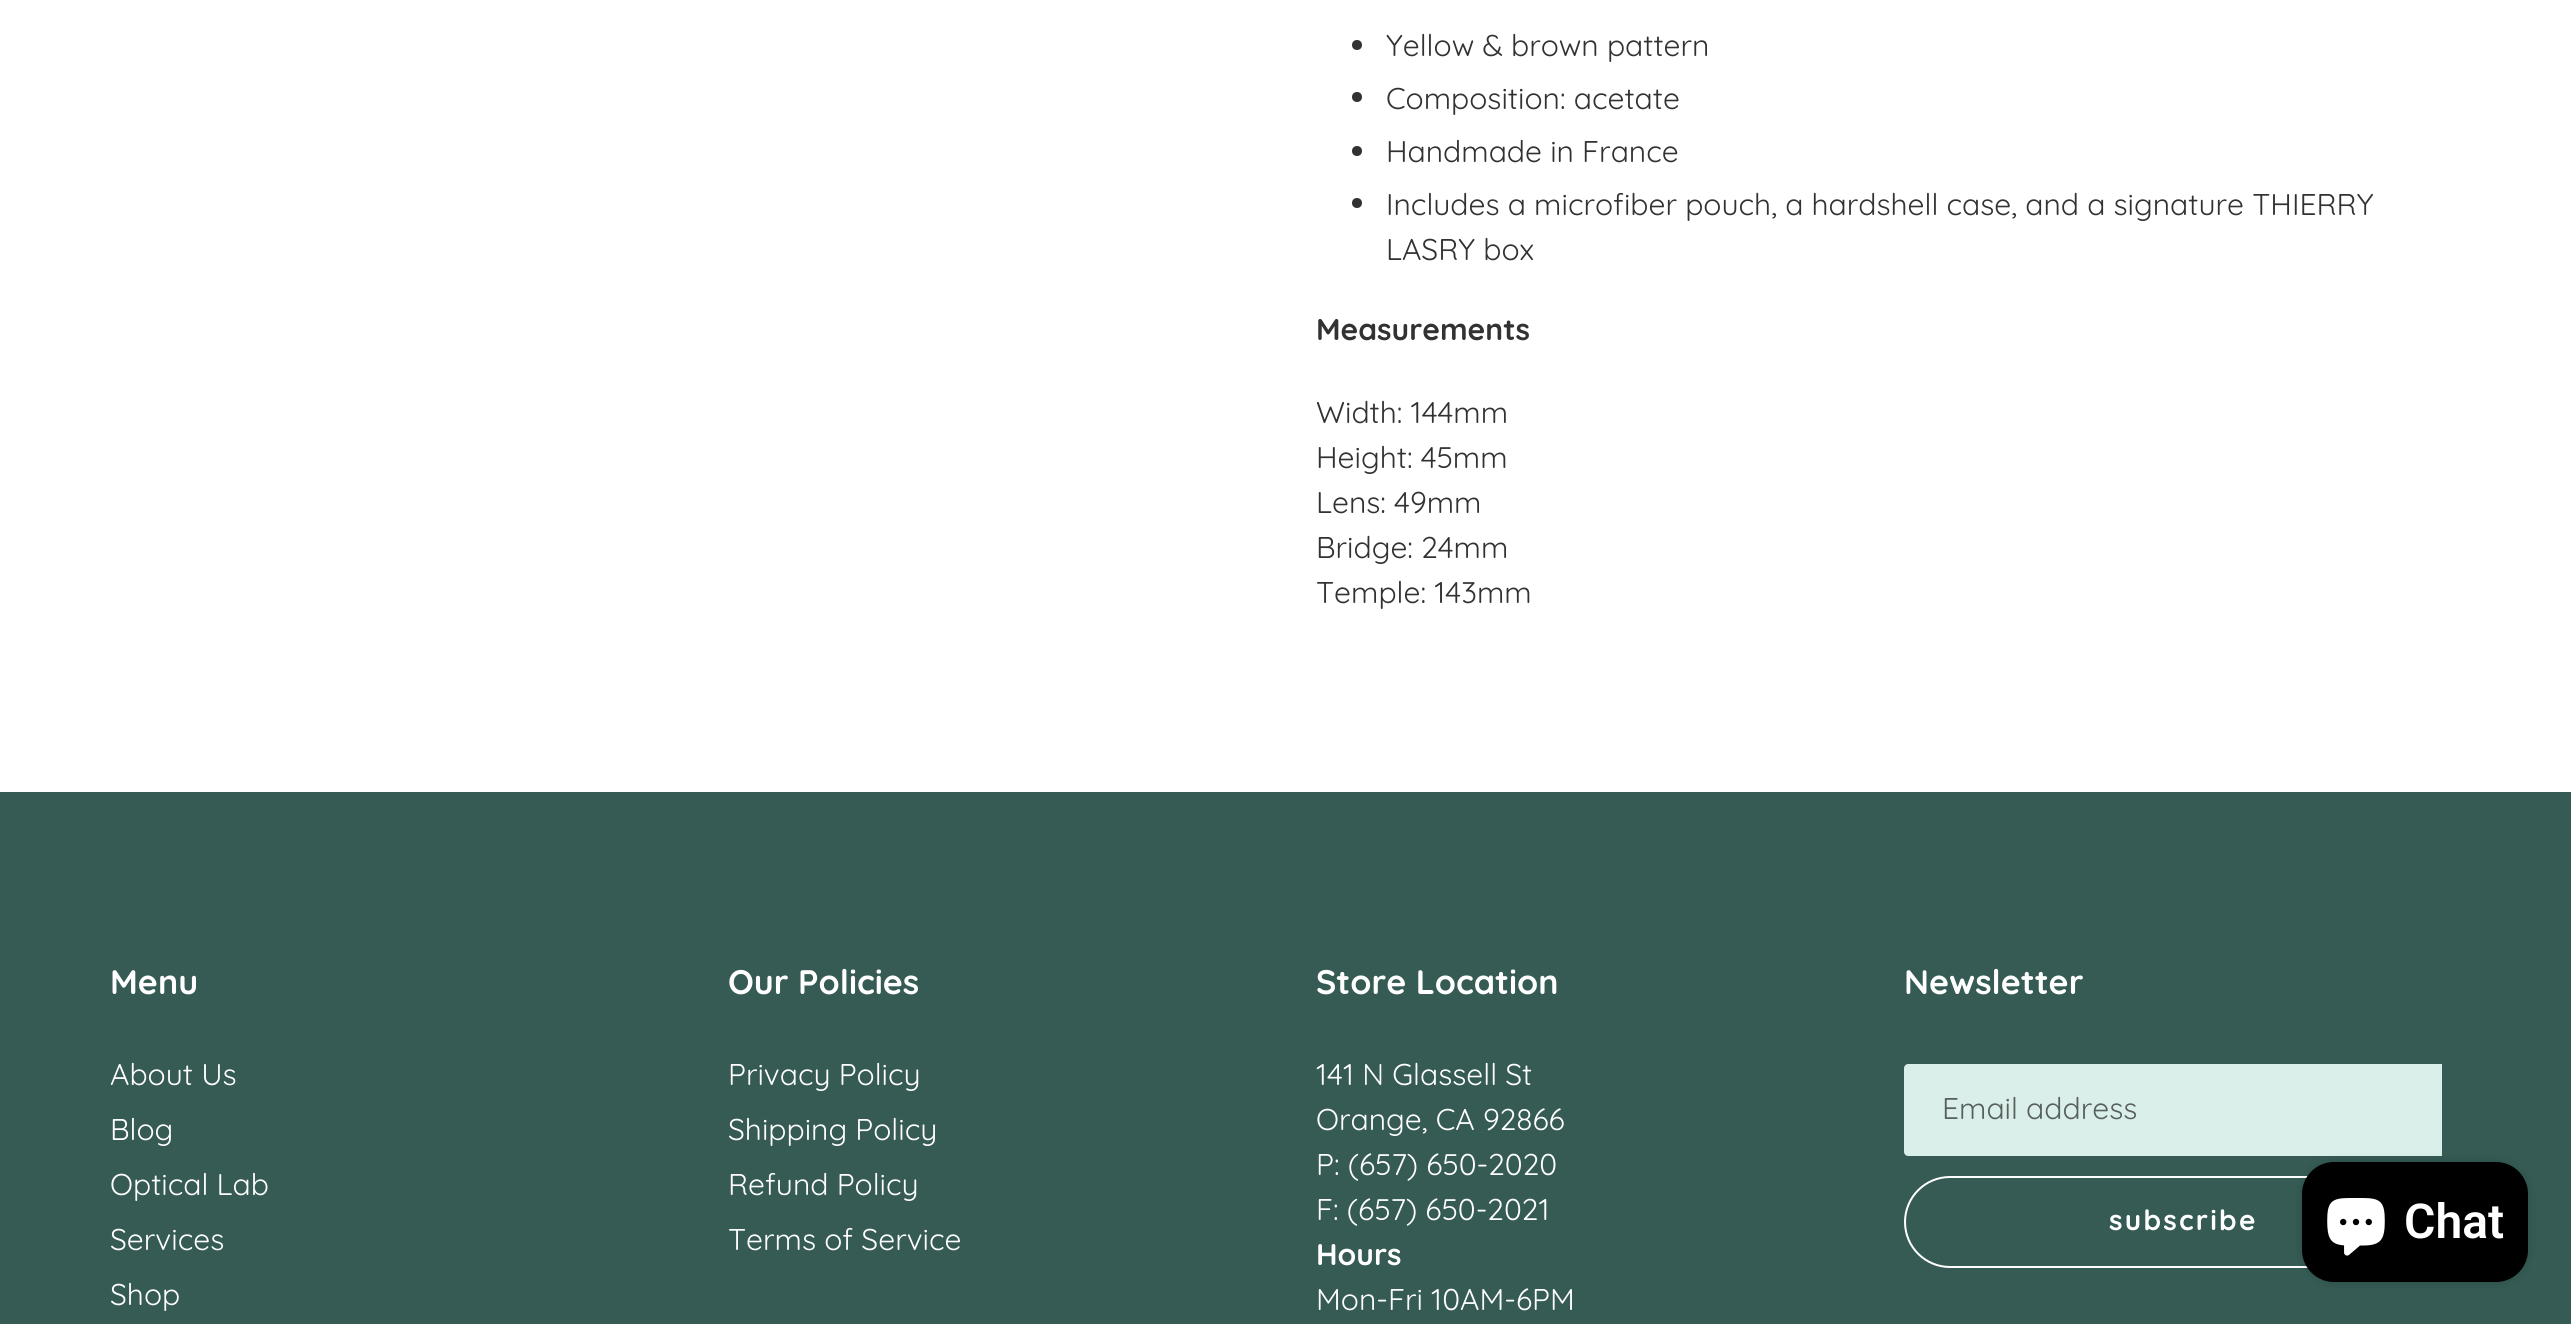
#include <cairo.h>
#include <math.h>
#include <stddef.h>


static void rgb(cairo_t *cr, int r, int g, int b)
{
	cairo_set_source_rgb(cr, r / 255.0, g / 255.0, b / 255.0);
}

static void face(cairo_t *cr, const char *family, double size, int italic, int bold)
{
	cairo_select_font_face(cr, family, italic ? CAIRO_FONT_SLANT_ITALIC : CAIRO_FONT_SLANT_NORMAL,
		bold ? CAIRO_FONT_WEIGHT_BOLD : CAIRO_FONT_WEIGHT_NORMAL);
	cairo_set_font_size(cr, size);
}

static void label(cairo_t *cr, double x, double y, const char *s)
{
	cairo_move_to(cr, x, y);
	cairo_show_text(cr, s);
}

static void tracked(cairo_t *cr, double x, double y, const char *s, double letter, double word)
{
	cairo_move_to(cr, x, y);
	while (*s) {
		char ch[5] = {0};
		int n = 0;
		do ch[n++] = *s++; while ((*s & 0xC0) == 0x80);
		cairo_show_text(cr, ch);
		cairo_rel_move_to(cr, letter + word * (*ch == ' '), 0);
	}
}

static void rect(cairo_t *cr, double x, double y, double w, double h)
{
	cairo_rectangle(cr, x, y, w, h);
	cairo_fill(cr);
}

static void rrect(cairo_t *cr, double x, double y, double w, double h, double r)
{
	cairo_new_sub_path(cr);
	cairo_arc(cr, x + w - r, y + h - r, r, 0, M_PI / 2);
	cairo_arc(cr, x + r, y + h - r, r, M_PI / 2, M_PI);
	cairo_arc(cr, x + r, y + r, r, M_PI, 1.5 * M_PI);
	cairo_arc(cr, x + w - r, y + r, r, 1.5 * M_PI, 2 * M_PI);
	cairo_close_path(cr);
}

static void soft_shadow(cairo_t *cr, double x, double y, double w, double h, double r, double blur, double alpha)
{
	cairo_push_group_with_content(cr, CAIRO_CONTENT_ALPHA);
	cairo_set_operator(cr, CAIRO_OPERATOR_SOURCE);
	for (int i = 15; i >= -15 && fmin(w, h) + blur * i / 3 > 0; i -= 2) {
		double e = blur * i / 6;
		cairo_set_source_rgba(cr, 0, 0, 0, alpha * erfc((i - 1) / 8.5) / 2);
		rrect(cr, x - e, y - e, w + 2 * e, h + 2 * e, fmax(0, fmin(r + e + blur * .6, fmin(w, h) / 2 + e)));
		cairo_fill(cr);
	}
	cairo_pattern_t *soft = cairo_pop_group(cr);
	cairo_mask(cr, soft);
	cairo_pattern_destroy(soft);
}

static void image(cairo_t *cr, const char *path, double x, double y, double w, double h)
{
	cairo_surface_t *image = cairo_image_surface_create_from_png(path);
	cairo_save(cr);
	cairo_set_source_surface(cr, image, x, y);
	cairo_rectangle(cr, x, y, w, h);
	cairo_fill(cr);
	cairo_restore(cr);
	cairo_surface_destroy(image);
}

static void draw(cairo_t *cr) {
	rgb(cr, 255, 255, 255);
	cairo_paint(cr);
	rgb(cr, 51, 50, 50);
	cairo_arc(cr, 1357, 45, 5, 0, 2 * M_PI);
	cairo_fill(cr);
	face(cr, "Quicksand", 30, 0, 0);
	label(cr, 1386, 56, "Yellow & brown pattern");
	cairo_new_path(cr);
	cairo_arc(cr, 1357, 97, 5, 0, 2 * M_PI);
	cairo_fill(cr);
	label(cr, 1386, 109, "Composition: acetate");
	cairo_new_path(cr);
	cairo_arc(cr, 1357, 151, 5, 0, 2 * M_PI);
	cairo_fill(cr);
	label(cr, 1386, 162, "Handmade in France");
	cairo_new_path(cr);
	cairo_arc(cr, 1357, 203, 5, 0, 2 * M_PI);
	cairo_fill(cr);
	label(cr, 1386, 215, "Includes a microfiber pouch, a hardshell case, and a signature THIERRY");
	label(cr, 1386, 260, "LASRY box");
	face(cr, "Quicksand", 30, 0, 1);
	label(cr, 1316, 340, "Measurements");
	face(cr, "Quicksand", 30, 0, 0);
	label(cr, 1316, 423, "Width: 144mm");
	label(cr, 1316, 468, "Height: 45mm");
	label(cr, 1316, 513, "Lens: 49mm");
	label(cr, 1316, 558, "Bridge: 24mm");
	label(cr, 1316, 603, "Temple: 143mm");
	rgb(cr, 53, 91, 84);
	rect(cr, 0, 792, 2571, 532);
	face(cr, "Quicksand", 34, 0, 1);
	rgb(cr, 255, 255, 255);
	label(cr, 110, 994, "Menu");
	face(cr, "Quicksand", 30, 0, 0);
	label(cr, 110, 1085, "About Us");
	label(cr, 110, 1140, "Blog");
	label(cr, 110, 1195, "Optical Lab");
	label(cr, 110, 1250, "Services");
	label(cr, 110, 1305, "Shop");
	face(cr, "Quicksand", 34, 0, 1);
	label(cr, 728, 994, "Our Policies");
	face(cr, "Quicksand", 30, 0, 0);
	label(cr, 728, 1085, "Privacy Policy");
	label(cr, 728, 1140, "Shipping Policy");
	label(cr, 728, 1195, "Refund Policy");
	label(cr, 728, 1250, "Terms of Service");
	face(cr, "Quicksand", 34, 0, 1);
	label(cr, 1316, 994, "Store Location");
	face(cr, "Quicksand", 30, 0, 0);
	label(cr, 1316, 1085, "141 N Glassell St");
	label(cr, 1316, 1130, "Orange, CA 92866");
	label(cr, 1316, 1175, "P: (657) 650-2020");
	label(cr, 1316, 1220, "F: (657) 650-2021");
	face(cr, "Quicksand", 30, 0, 1);
	label(cr, 1316, 1265, "Hours");
	face(cr, "Quicksand", 30, 0, 0);
	label(cr, 1316, 1310, "Mon-Fri 10AM-6PM");
	face(cr, "Quicksand", 34, 0, 1);
	label(cr, 1904, 994, "Newsletter");
	rgb(cr, 218, 239, 233);
	cairo_new_path(cr);
	cairo_move_to(cr, 1908, 1064);
	cairo_line_to(cr, 2442, 1064);
	cairo_line_to(cr, 2442, 1156);
	cairo_line_to(cr, 1908, 1156);
	cairo_curve_to(cr, 1906, 1156, 1904, 1154, 1904, 1152);
	cairo_line_to(cr, 1904, 1068);
	cairo_curve_to(cr, 1904, 1066, 1906, 1064, 1908, 1064);
	cairo_close_path(cr);
	cairo_fill(cr);
	face(cr, "Quicksand", 30, 0, 0);
	rgb(cr, 87, 96, 93);
	label(cr, 1942, 1119, "Email address");
	rrect(cr, 1905, 1177, 556, 90, 45);
	rgb(cr, 255, 255, 255);
	cairo_stroke(cr);
	face(cr, "Quicksand", 28, 0, 1);
	tracked(cr, 2109, 1230, "subscribe", 2.25, 0);
	rgb(cr, 0, 0, 0);
	soft_shadow(cr, 2302, 1162, 226, 120, 32, 5, 0.15);
	rgb(cr, 0, 0, 0);
	rrect(cr, 2302, 1162, 226, 120, 32);
	cairo_fill(cr);
	image(cr, "image0.png", 2327, 1198, 58, 58);
	face(cr, "Roboto SemiBold", 48, 0, 0);
	rgb(cr, 255, 255, 255);
	label(cr, 2404, 1238, "Chat");
}

int main(void) {
	cairo_surface_t *surface = cairo_image_surface_create(CAIRO_FORMAT_RGB24, 2571, 1324);
	cairo_t *cr = cairo_create(surface);
	cairo_font_options_t *options = cairo_font_options_create();
	cairo_font_options_set_hint_metrics(options, CAIRO_HINT_METRICS_OFF);
	cairo_font_options_set_hint_style(options, CAIRO_HINT_STYLE_NONE);
	cairo_set_font_options(cr, options);
	cairo_set_miter_limit(cr, 4);
	draw(cr);
	cairo_surface_write_to_png(surface, "render.png");
	cairo_font_options_destroy(options);
	cairo_destroy(cr);
	cairo_surface_destroy(surface);
	return 0;
}
